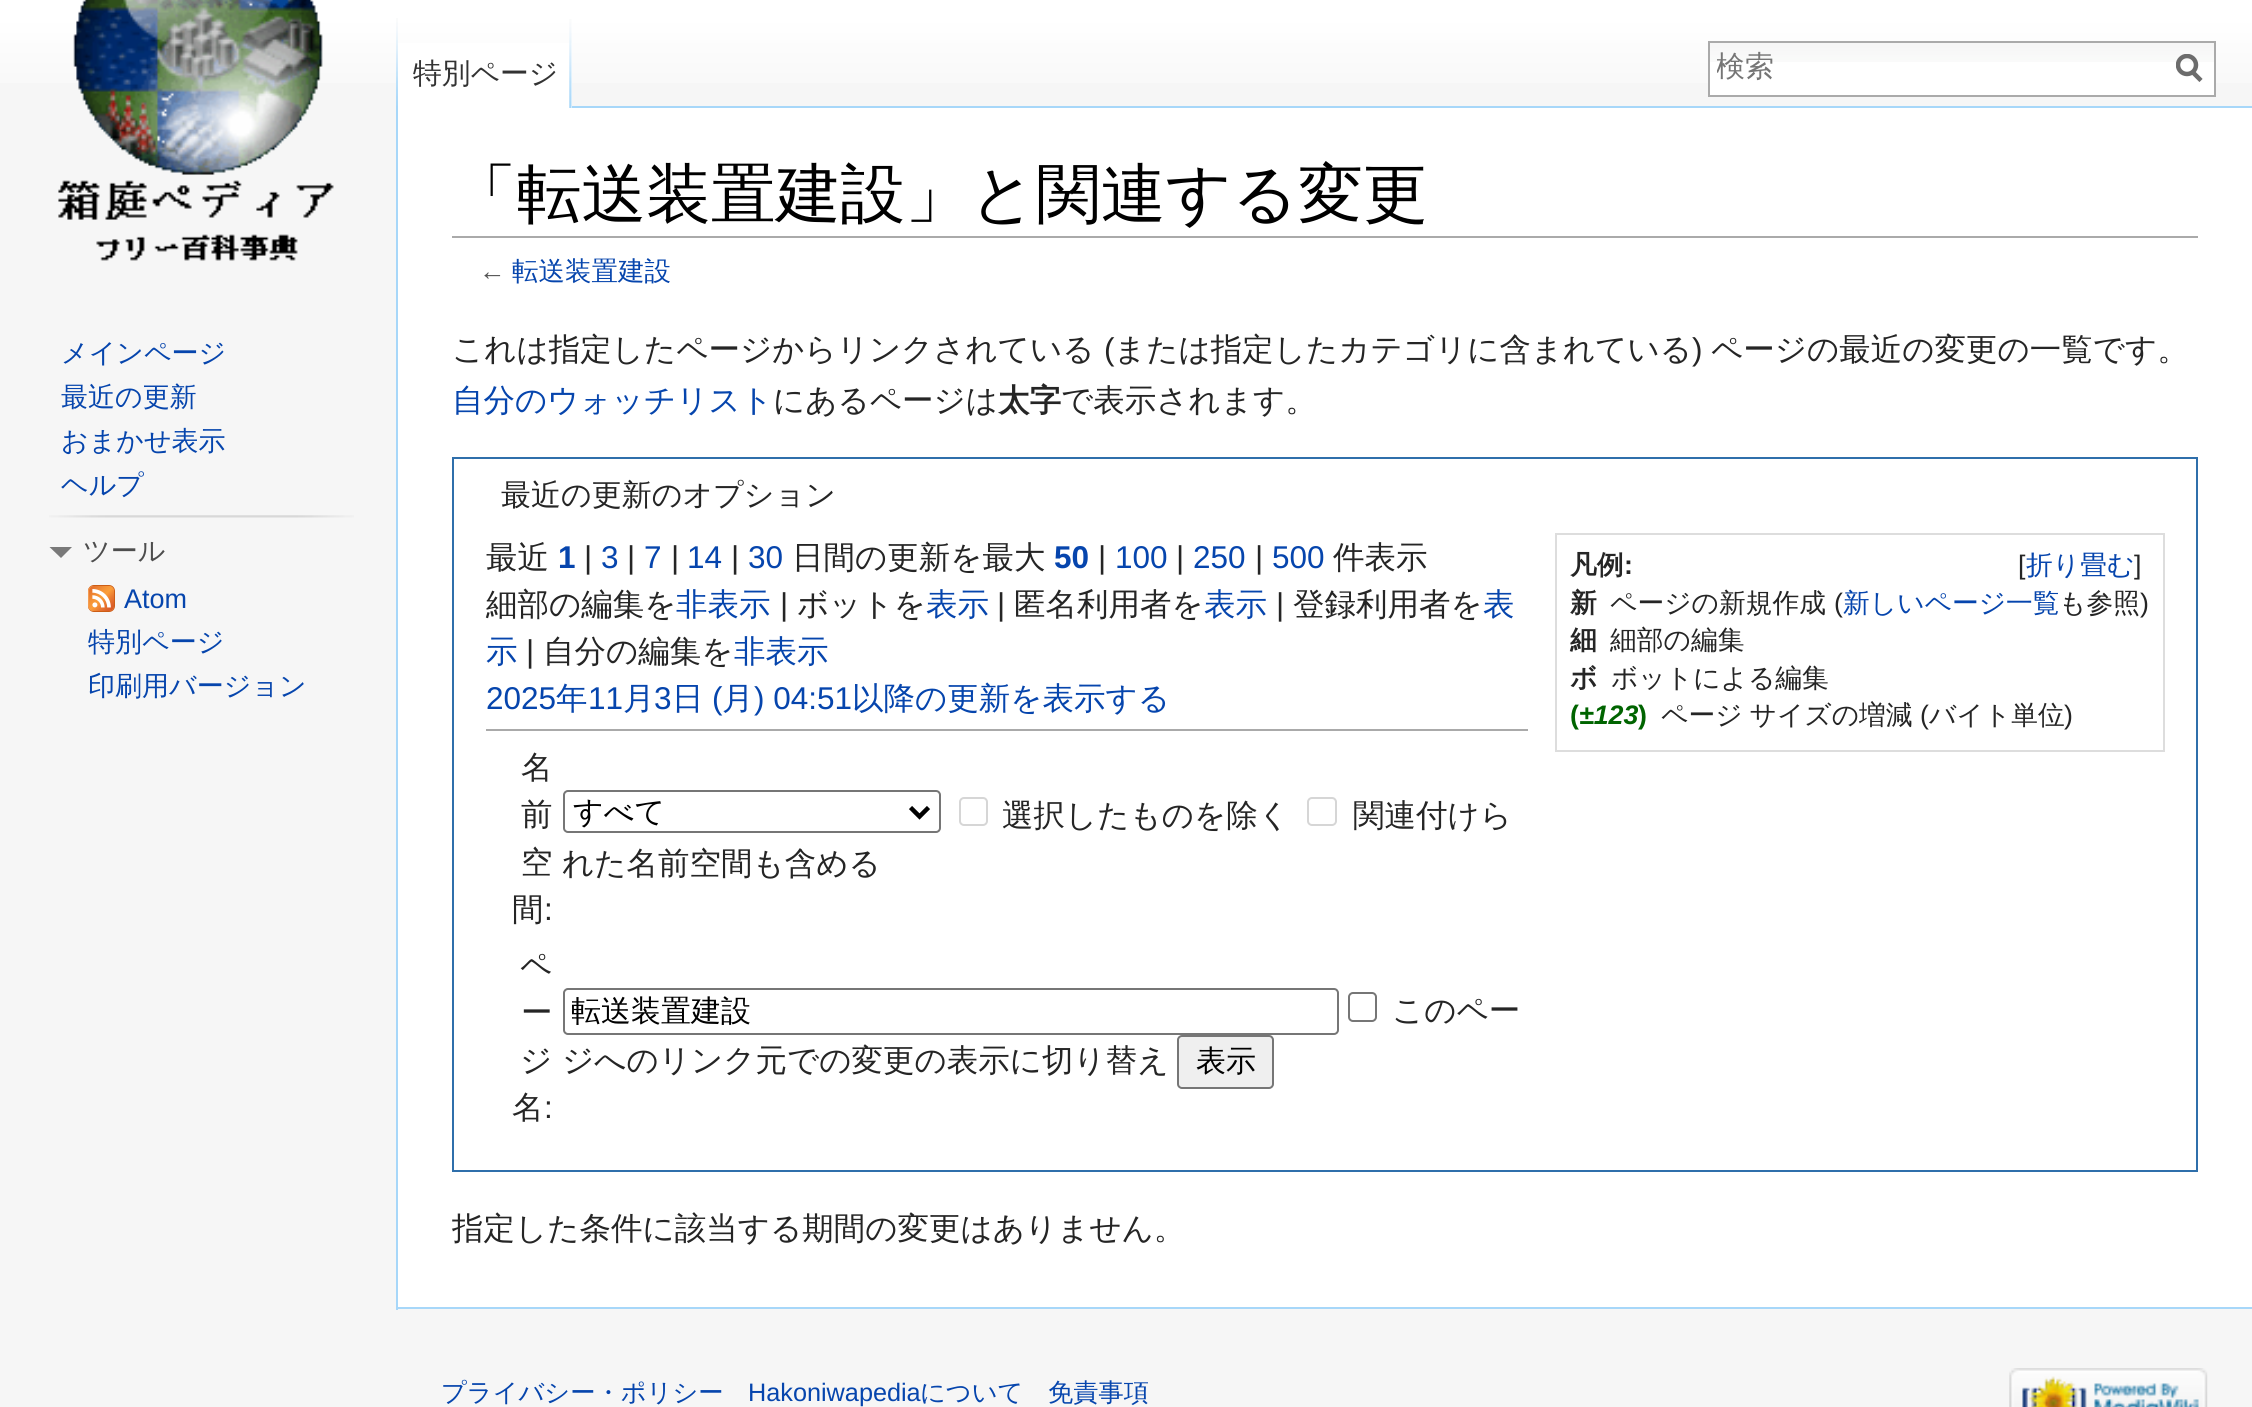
#include <cairo.h>
#include <math.h>
#include <stddef.h>


static void rgb(cairo_t *cr, int r, int g, int b)
{
	cairo_set_source_rgb(cr, r / 255.0, g / 255.0, b / 255.0);
}

static void face(cairo_t *cr, const char *family, double size, int italic, int bold)
{
	cairo_select_font_face(cr, family, italic ? CAIRO_FONT_SLANT_ITALIC : CAIRO_FONT_SLANT_NORMAL,
		bold ? CAIRO_FONT_WEIGHT_BOLD : CAIRO_FONT_WEIGHT_NORMAL);
	cairo_set_font_size(cr, size);
}

static void label(cairo_t *cr, double x, double y, const char *s)
{
	cairo_move_to(cr, x, y);
	cairo_show_text(cr, s);
}

static void tracked(cairo_t *cr, double x, double y, const char *s, double letter, double word)
{
	cairo_move_to(cr, x, y);
	while (*s) {
		char ch[5] = {0};
		int n = 0;
		do ch[n++] = *s++; while ((*s & 0xC0) == 0x80);
		cairo_show_text(cr, ch);
		cairo_rel_move_to(cr, letter + word * (*ch == ' '), 0);
	}
}

static void rect(cairo_t *cr, double x, double y, double w, double h)
{
	cairo_rectangle(cr, x, y, w, h);
	cairo_fill(cr);
}

static void rrect(cairo_t *cr, double x, double y, double w, double h, double r)
{
	cairo_new_sub_path(cr);
	cairo_arc(cr, x + w - r, y + h - r, r, 0, M_PI / 2);
	cairo_arc(cr, x + r, y + h - r, r, M_PI / 2, M_PI);
	cairo_arc(cr, x + r, y + r, r, M_PI, 1.5 * M_PI);
	cairo_arc(cr, x + w - r, y + r, r, 1.5 * M_PI, 2 * M_PI);
	cairo_close_path(cr);
}

static void image(cairo_t *cr, const char *path, double x, double y, double w, double h)
{
	cairo_surface_t *image = cairo_image_surface_create_from_png(path);
	cairo_save(cr);
	cairo_set_source_surface(cr, image, x, y);
	cairo_rectangle(cr, x, y, w, h);
	cairo_fill(cr);
	cairo_restore(cr);
	cairo_surface_destroy(image);
}

static void draw(cairo_t *cr) {
	cairo_pattern_t *gradient;
	rgb(cr, 246, 246, 246);
	cairo_paint(cr);
	gradient = cairo_pattern_create_linear(1126, -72, 1126, 108);
	cairo_pattern_add_color_stop_rgba(gradient, 0.5, 1, 1, 1, 1);
	cairo_pattern_add_color_stop_rgba(gradient, 1, 0.965, 0.965, 0.965, 1);
	cairo_set_source(cr, gradient);
	cairo_pattern_destroy(gradient);
	rect(cr, 0, 0, 2252, 83);
	image(cr, "image0.png", 396, 18, 2, 88);
	rgb(cr, 255, 255, 255);
	rect(cr, 398, 43, 174, 65);
	image(cr, "image1.png", 569, 19, 3, 89);
	face(cr, "WenQuanYi Zen Hei Medium", 28.75, 0, 0);
	rgb(cr, 51, 51, 51);
	label(cr, 413, 83, "特別ページ");
	rgb(cr, 255, 255, 255);
	rect(cr, 1710, 62, 504, 33);
	image(cr, "image2.png", 1710, 43, 504, 19);
	cairo_rectangle(cr, 1709, 42, 506, 54);
	rgb(cr, 170, 170, 170);
	cairo_stroke(cr);
	cairo_save(cr);
	cairo_rectangle(cr, 1717, 47, 418, 41);
	cairo_clip(cr);
	face(cr, "WenQuanYi Zen Hei Medium", 29, 0, 0);
	rgb(cr, 117, 117, 117);
	label(cr, 1716, 76, "検索");
	cairo_restore(cr);
	cairo_new_path(cr);
	cairo_move_to(cr, 2201, 80.5);
	cairo_line_to(cr, 2192, 71.5);
	rgb(cr, 108, 108, 108);
	cairo_set_line_width(cr, 4.5);
	cairo_stroke(cr);
	cairo_save(cr);
	cairo_rectangle(cr, 2176, 54, 27, 29);
	cairo_clip(cr);
	cairo_arc(cr, 2187, 65, 9, 0, 2 * M_PI);
	cairo_stroke(cr);
	cairo_restore(cr);
	image(cr, "image3.png", 58, 0, 276, 261);
	face(cr, "WenQuanYi Zen Hei Medium", 27, 0, 0);
	rgb(cr, 6, 69, 173);
	label(cr, 61, 362, "メインページ");
	label(cr, 61, 406, "最近の更新");
	label(cr, 61, 450, "おまかせ表示");
	label(cr, 61, 494, "ヘルプ");
	image(cr, "image4.png", 49, 515, 305, 3);
	rgb(cr, 121, 121, 121);
	cairo_new_path(cr);
	cairo_move_to(cr, 72, 547);
	cairo_line_to(cr, 61, 558);
	cairo_line_to(cr, 49.5, 547);
	cairo_close_path(cr);
	cairo_fill(cr);
	rgb(cr, 77, 77, 77);
	label(cr, 83, 560, "ツール");
	image(cr, "image5.png", 88, 585, 27, 27);
	face(cr, "Liberation Sans", 27, 0, 0);
	rgb(cr, 6, 69, 173);
	label(cr, 124, 608, "Atom");
	face(cr, "WenQuanYi Zen Hei Medium", 27, 0, 0);
	label(cr, 88, 651, "特別ページ");
	label(cr, 88, 695, "印刷用バージョン");
	rgb(cr, 255, 255, 255);
	rect(cr, 398, 108, 1854, 1199);
	rgb(cr, 167, 215, 249);
	rect(cr, 572, 106, 1680, 2);
	rect(cr, 396, 1307, 1856, 2);
	rect(cr, 396, 106, 2, 1204);
	rgb(cr, 170, 170, 170);
	rect(cr, 452, 236, 1746, 2);
	face(cr, "WenQuanYi Zen Hei Medium", 64.75, 0, 0);
	rgb(cr, 0, 0, 0);
	label(cr, 452, 216, "「転送装置建設」と関連する変更");
	face(cr, "Liberation Sans", 26.5, 0, 0);
	rgb(cr, 84, 84, 84);
	label(cr, 479, 280, "←");
	face(cr, "WenQuanYi Zen Hei Medium", 26.5, 0, 0);
	rgb(cr, 6, 69, 173);
	label(cr, 512, 280, "転送装置建設");
	face(cr, "WenQuanYi Zen Hei Medium", 31.5, 0, 0);
	rgb(cr, 37, 37, 37);
	label(cr, 452, 360, "これは指定したページからリンクされている");
	face(cr, "Liberation Sans", 31.5, 0, 0);
	label(cr, 1104, 360, "(");
	face(cr, "WenQuanYi Zen Hei Medium", 31.5, 0, 0);
	label(cr, 1114, 360, "または指定したカテゴリに含まれている");
	face(cr, "Liberation Sans", 31.5, 0, 0);
	label(cr, 1692, 360, ")");
	face(cr, "WenQuanYi Zen Hei Medium", 31.5, 0, 0);
	label(cr, 1711, 360, "ページの最近の変更の一覧です。");
	rgb(cr, 6, 69, 173);
	label(cr, 452, 411, "自分のウォッチリスト");
	rgb(cr, 37, 37, 37);
	label(cr, 773, 411, "にあるページは");
	face(cr, "WenQuanYi Zen Hei", 31.5, 0, 1);
	label(cr, 998, 411, "太字");
	face(cr, "WenQuanYi Zen Hei Medium", 31.5, 0, 0);
	label(cr, 1061, 411, "で表示されます。");
	cairo_rectangle(cr, 453, 458, 1744, 713);
	rgb(cr, 47, 111, 171);
	cairo_set_line_width(cr, 2);
	cairo_stroke(cr);
	face(cr, "WenQuanYi Zen Hei Medium", 30, 0, 0);
	rgb(cr, 37, 37, 37);
	label(cr, 501, 505, "最近の更新のオプション");
	face(cr, "WenQuanYi Zen Hei Medium", 31.5, 0, 0);
	label(cr, 486, 568, "最近");
	face(cr, "Liberation Sans", 31.5, 0, 1);
	rgb(cr, 6, 69, 173);
	label(cr, 558, 568, "1");
	face(cr, "Liberation Sans", 31.5, 0, 0);
	rgb(cr, 37, 37, 37);
	label(cr, 584, 568, "|");
	rgb(cr, 6, 69, 173);
	label(cr, 601, 568, "3");
	rgb(cr, 37, 37, 37);
	label(cr, 627, 568, "|");
	rgb(cr, 6, 69, 173);
	label(cr, 644, 568, "7");
	rgb(cr, 37, 37, 37);
	label(cr, 671, 568, "|");
	rgb(cr, 6, 69, 173);
	label(cr, 687, 568, "14");
	rgb(cr, 37, 37, 37);
	label(cr, 731, 568, "|");
	rgb(cr, 6, 69, 173);
	label(cr, 748, 568, "30");
	face(cr, "WenQuanYi Zen Hei Medium", 31.5, 0, 0);
	rgb(cr, 37, 37, 37);
	label(cr, 792, 568, "日間の更新を最大");
	face(cr, "Liberation Sans", 31.5, 0, 1);
	rgb(cr, 6, 69, 173);
	label(cr, 1054, 568, "50");
	face(cr, "Liberation Sans", 31.5, 0, 0);
	rgb(cr, 37, 37, 37);
	label(cr, 1098, 568, "|");
	rgb(cr, 6, 69, 173);
	label(cr, 1115, 568, "100");
	rgb(cr, 37, 37, 37);
	label(cr, 1176, 568, "|");
	rgb(cr, 6, 69, 173);
	label(cr, 1193, 568, "250");
	rgb(cr, 37, 37, 37);
	label(cr, 1255, 568, "|");
	rgb(cr, 6, 69, 173);
	label(cr, 1272, 568, "500");
	face(cr, "WenQuanYi Zen Hei Medium", 31.5, 0, 0);
	rgb(cr, 37, 37, 37);
	label(cr, 1333, 568, "件表示");
	cairo_rectangle(cr, 1556, 534, 608, 217);
	rgb(cr, 221, 221, 221);
	cairo_stroke(cr);
	face(cr, "WenQuanYi Zen Hei", 26.75, 0, 1);
	rgb(cr, 37, 37, 37);
	label(cr, 1570, 574, "凡例");
	face(cr, "Liberation Sans", 26.75, 0, 1);
	label(cr, 1624, 574, ":");
	face(cr, "Liberation Sans", 26.75, 0, 0);
	label(cr, 2018, 574, "[");
	face(cr, "WenQuanYi Zen Hei Medium", 26.75, 0, 0);
	rgb(cr, 6, 69, 173);
	label(cr, 2026, 574, "折り畳む");
	face(cr, "Liberation Sans", 26.75, 0, 0);
	rgb(cr, 37, 37, 37);
	label(cr, 2134, 574, "]");
	face(cr, "WenQuanYi Zen Hei", 26.75, 0, 1);
	label(cr, 1570, 612, "新");
	face(cr, "WenQuanYi Zen Hei Medium", 26.75, 0, 0);
	label(cr, 1610, 612, "ページの新規作成");
	face(cr, "Liberation Sans", 26.75, 0, 0);
	label(cr, 1834, 612, "(");
	face(cr, "WenQuanYi Zen Hei Medium", 26.75, 0, 0);
	rgb(cr, 6, 69, 173);
	label(cr, 1843, 612, "新しいページ一覧");
	rgb(cr, 37, 37, 37);
	label(cr, 2059, 612, "も参照");
	face(cr, "Liberation Sans", 26.75, 0, 0);
	label(cr, 2140, 612, ")");
	face(cr, "WenQuanYi Zen Hei", 26.75, 0, 1);
	label(cr, 1570, 649, "細");
	face(cr, "WenQuanYi Zen Hei Medium", 26.75, 0, 0);
	label(cr, 1610, 649, "細部の編集");
	face(cr, "WenQuanYi Zen Hei", 26.75, 0, 1);
	label(cr, 1570, 687, "ボ");
	face(cr, "WenQuanYi Zen Hei Medium", 26.75, 0, 0);
	label(cr, 1611, 687, "ボットによる編集");
	face(cr, "Liberation Sans", 26.75, 0, 1);
	rgb(cr, 0, 100, 0);
	label(cr, 1570, 724, "(");
	face(cr, "Liberation Sans", 26.75, 1, 1);
	label(cr, 1579, 724, "±123");
	face(cr, "Liberation Sans", 26.75, 0, 1);
	label(cr, 1638, 724, ")");
	face(cr, "WenQuanYi Zen Hei Medium", 26.75, 0, 0);
	rgb(cr, 37, 37, 37);
	tracked(cr, 1661, 724, "ページ サイズの増減", 0, -1);
	face(cr, "Liberation Sans", 26.75, 0, 0);
	label(cr, 1920, 724, "(");
	face(cr, "WenQuanYi Zen Hei Medium", 26.75, 0, 0);
	label(cr, 1929, 724, "バイト単位");
	face(cr, "Liberation Sans", 26.75, 0, 0);
	label(cr, 2064, 724, ")");
	face(cr, "WenQuanYi Zen Hei Medium", 31.5, 0, 0);
	label(cr, 486, 615, "細部の編集を");
	rgb(cr, 6, 69, 173);
	label(cr, 676, 615, "非表示");
	face(cr, "Liberation Sans", 31.5, 0, 0);
	rgb(cr, 37, 37, 37);
	label(cr, 780, 615, "|");
	face(cr, "WenQuanYi Zen Hei Medium", 31.5, 0, 0);
	label(cr, 797, 615, "ボットを");
	rgb(cr, 6, 69, 173);
	label(cr, 926, 615, "表示");
	face(cr, "Liberation Sans", 31.5, 0, 0);
	rgb(cr, 37, 37, 37);
	label(cr, 997, 615, "|");
	face(cr, "WenQuanYi Zen Hei Medium", 31.5, 0, 0);
	label(cr, 1014, 615, "匿名利用者を");
	rgb(cr, 6, 69, 173);
	label(cr, 1204, 615, "表示");
	face(cr, "Liberation Sans", 31.5, 0, 0);
	rgb(cr, 37, 37, 37);
	label(cr, 1276, 615, "|");
	face(cr, "WenQuanYi Zen Hei Medium", 31.5, 0, 0);
	label(cr, 1293, 615, "登録利用者を");
	rgb(cr, 6, 69, 173);
	label(cr, 1483, 615, "表");
	label(cr, 486, 662, "示");
	face(cr, "Liberation Sans", 31.5, 0, 0);
	rgb(cr, 37, 37, 37);
	label(cr, 526, 662, "|");
	face(cr, "WenQuanYi Zen Hei Medium", 31.5, 0, 0);
	label(cr, 543, 662, "自分の編集を");
	rgb(cr, 6, 69, 173);
	label(cr, 734, 662, "非表示");
	face(cr, "Liberation Sans", 31.5, 0, 0);
	label(cr, 486, 709, "2025");
	face(cr, "WenQuanYi Zen Hei Medium", 31.5, 0, 0);
	label(cr, 556, 709, "年");
	face(cr, "Liberation Sans", 31.5, 0, 0);
	label(cr, 588, 709, "11");
	face(cr, "WenQuanYi Zen Hei Medium", 31.5, 0, 0);
	label(cr, 623, 709, "月");
	face(cr, "Liberation Sans", 31.5, 0, 0);
	label(cr, 654, 709, "3");
	face(cr, "WenQuanYi Zen Hei Medium", 31.5, 0, 0);
	label(cr, 672, 709, "日");
	face(cr, "Liberation Sans", 31.5, 0, 0);
	label(cr, 712, 709, "(");
	face(cr, "WenQuanYi Zen Hei Medium", 31.5, 0, 0);
	label(cr, 722, 709, "月");
	face(cr, "Liberation Sans", 31.5, 0, 0);
	label(cr, 754, 709, ") 04:51");
	face(cr, "WenQuanYi Zen Hei Medium", 31.5, 0, 0);
	label(cr, 852, 709, "以降の更新を表示する");
	rgb(cr, 170, 170, 170);
	rect(cr, 486, 729, 1042, 2);
	rgb(cr, 37, 37, 37);
	label(cr, 521, 778, "名");
	label(cr, 521, 825, "前");
	label(cr, 521, 873, "空");
	label(cr, 512, 920, "間");
	face(cr, "Liberation Sans", 31.5, 0, 0);
	label(cr, 544, 920, ":");
	rrect(cr, 564, 791, 376, 41, 4);
	rgb(cr, 118, 118, 118);
	cairo_stroke(cr);
	cairo_new_path(cr);
	cairo_move_to(cr, 910.5, 807.5);
	cairo_line_to(cr, 919.5, 816.5);
	cairo_line_to(cr, 928.5, 807.5);
	rgb(cr, 0, 0, 0);
	cairo_set_line_width(cr, 4.5);
	cairo_stroke(cr);
	face(cr, "WenQuanYi Zen Hei Medium", 30, 0, 0);
	label(cr, 573, 822, "すべて");
	rrect(cr, 960, 798, 27, 27, 4);
	rgb(cr, 214, 214, 214);
	cairo_set_line_width(cr, 2);
	cairo_stroke(cr);
	face(cr, "WenQuanYi Zen Hei Medium", 31.5, 0, 0);
	rgb(cr, 37, 37, 37);
	label(cr, 1002, 826, "選択したものを除く");
	rrect(cr, 1308, 798, 28, 27, 4);
	rgb(cr, 214, 214, 214);
	cairo_stroke(cr);
	rgb(cr, 37, 37, 37);
	label(cr, 1353, 826, "関連付けら");
	label(cr, 562, 874, "れた名前空間も含める");
	label(cr, 520, 976, "ペ");
	label(cr, 521, 1023, "ー");
	label(cr, 520, 1071, "ジ");
	label(cr, 512, 1118, "名");
	face(cr, "Liberation Sans", 31.5, 0, 0);
	label(cr, 544, 1118, ":");
	rrect(cr, 564, 989, 774, 45, 4);
	rgb(cr, 118, 118, 118);
	cairo_stroke(cr);
	cairo_save(cr);
	cairo_rectangle(cr, 572, 992, 758, 39);
	cairo_clip(cr);
	face(cr, "WenQuanYi Zen Hei Medium", 30, 0, 0);
	rgb(cr, 0, 0, 0);
	label(cr, 571, 1021, "転送装置建設");
	cairo_restore(cr);
	rrect(cr, 1349, 993, 27, 28, 4);
	cairo_stroke(cr);
	face(cr, "WenQuanYi Zen Hei Medium", 31.5, 0, 0);
	rgb(cr, 37, 37, 37);
	label(cr, 1392, 1021, "このペー");
	label(cr, 562, 1071, "ジへのリンク元での変更の表示に切り替え");
	rgb(cr, 239, 239, 239);
	rrect(cr, 1178, 1036, 95, 52, 4);
	cairo_fill_preserve(cr);
	rgb(cr, 118, 118, 118);
	cairo_stroke(cr);
	face(cr, "WenQuanYi Zen Hei Medium", 30, 0, 0);
	rgb(cr, 0, 0, 0);
	label(cr, 1196, 1071, "表示");
	face(cr, "WenQuanYi Zen Hei Medium", 31.5, 0, 0);
	rgb(cr, 37, 37, 37);
	label(cr, 452, 1239, "指定した条件に該当する期間の変更はありません。");
	face(cr, "WenQuanYi Zen Hei Medium", 25.25, 0, 0);
	rgb(cr, 6, 69, 173);
	label(cr, 441, 1401, "プライバシー・ポリシー");
	face(cr, "Liberation Sans", 25.25, 0, 0);
	label(cr, 748, 1401, "Hakoniwapedia");
	face(cr, "WenQuanYi Zen Hei Medium", 25.25, 0, 0);
	label(cr, 920, 1401, "について");
	label(cr, 1048, 1401, "免責事項");
	image(cr, "image6.png", 2009, 1368, 199, 39);
}

int main(void) {
	cairo_surface_t *surface = cairo_image_surface_create(CAIRO_FORMAT_RGB24, 2252, 1407);
	cairo_t *cr = cairo_create(surface);
	cairo_font_options_t *options = cairo_font_options_create();
	cairo_font_options_set_hint_metrics(options, CAIRO_HINT_METRICS_OFF);
	cairo_font_options_set_hint_style(options, CAIRO_HINT_STYLE_NONE);
	cairo_set_font_options(cr, options);
	cairo_set_miter_limit(cr, 4);
	draw(cr);
	cairo_surface_write_to_png(surface, "render.png");
	cairo_font_options_destroy(options);
	cairo_destroy(cr);
	cairo_surface_destroy(surface);
	return 0;
}
